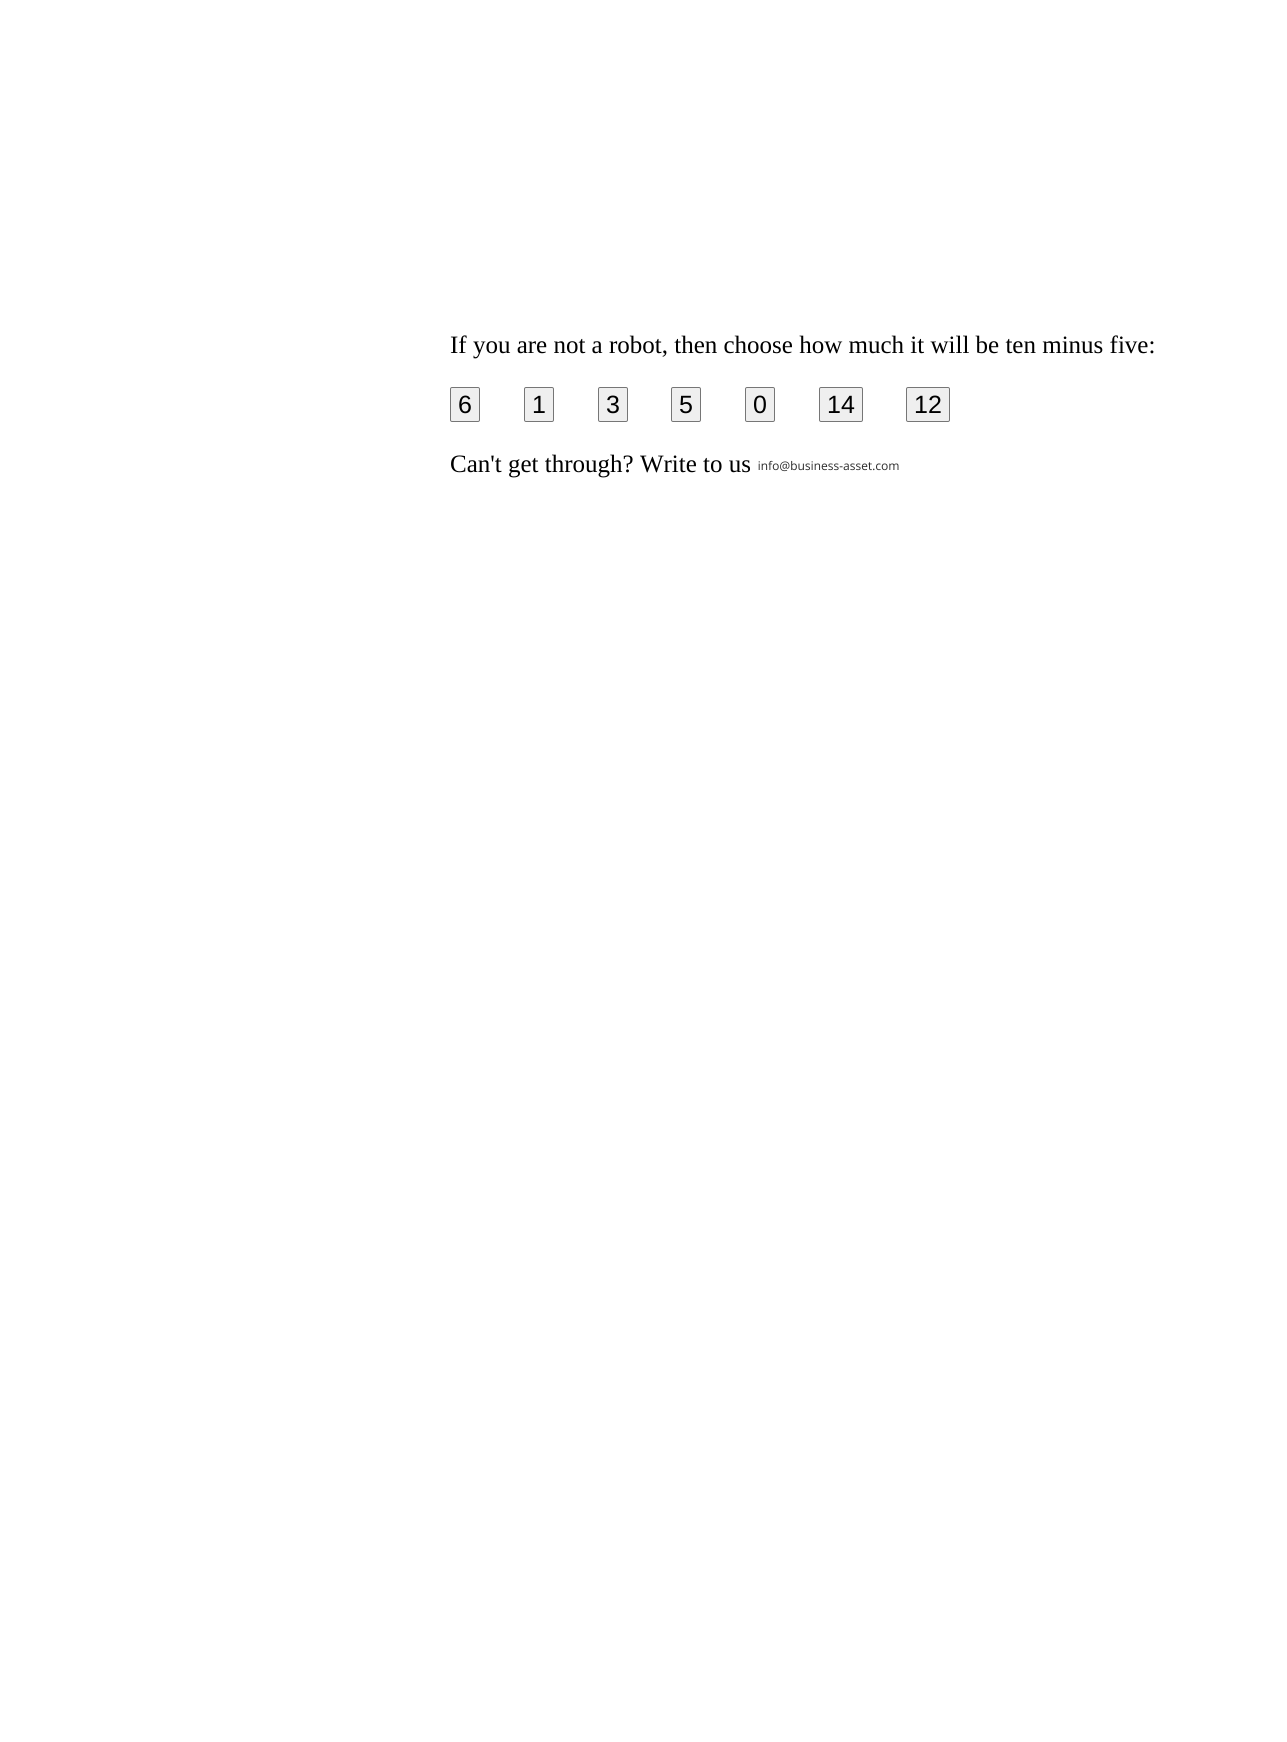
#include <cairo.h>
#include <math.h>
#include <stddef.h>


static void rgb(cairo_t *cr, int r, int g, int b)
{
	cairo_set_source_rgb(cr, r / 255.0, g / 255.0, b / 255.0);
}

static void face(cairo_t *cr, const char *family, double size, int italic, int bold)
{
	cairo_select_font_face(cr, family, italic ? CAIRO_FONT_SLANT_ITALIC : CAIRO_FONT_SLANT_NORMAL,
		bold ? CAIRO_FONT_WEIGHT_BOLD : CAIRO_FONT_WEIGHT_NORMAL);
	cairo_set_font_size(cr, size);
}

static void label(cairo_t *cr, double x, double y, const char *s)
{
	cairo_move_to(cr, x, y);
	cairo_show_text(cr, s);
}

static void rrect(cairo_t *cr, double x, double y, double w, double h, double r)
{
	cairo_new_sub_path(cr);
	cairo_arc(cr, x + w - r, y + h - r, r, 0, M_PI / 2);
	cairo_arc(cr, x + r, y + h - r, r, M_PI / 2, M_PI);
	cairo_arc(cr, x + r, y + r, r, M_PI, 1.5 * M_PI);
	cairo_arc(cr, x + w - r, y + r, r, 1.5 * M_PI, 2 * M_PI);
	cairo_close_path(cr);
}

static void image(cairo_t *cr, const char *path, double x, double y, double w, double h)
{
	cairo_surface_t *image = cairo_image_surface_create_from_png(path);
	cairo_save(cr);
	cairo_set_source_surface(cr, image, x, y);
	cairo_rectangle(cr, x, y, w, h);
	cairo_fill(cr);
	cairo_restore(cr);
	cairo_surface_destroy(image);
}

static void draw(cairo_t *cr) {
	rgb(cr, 255, 255, 255);
	cairo_paint(cr);
	face(cr, "Liberation Serif", 25, 0, 0);
	rgb(cr, 0, 0, 0);
	label(cr, 450, 353, "If you are not a robot, then choose how much it will be ten minus five:");
	rgb(cr, 239, 239, 239);
	rrect(cr, 450.5, 387.5, 29, 34, 1.5);
	cairo_fill_preserve(cr);
	rgb(cr, 118, 118, 118);
	cairo_set_line_width(cr, 1);
	cairo_stroke(cr);
	face(cr, "Liberation Sans", 25, 0, 0);
	rgb(cr, 0, 0, 0);
	label(cr, 458, 413, "6");
	rgb(cr, 239, 239, 239);
	rrect(cr, 524.5, 387.5, 29, 34, 1.5);
	cairo_fill_preserve(cr);
	rgb(cr, 118, 118, 118);
	cairo_stroke(cr);
	rgb(cr, 0, 0, 0);
	label(cr, 532, 413, "1");
	rgb(cr, 239, 239, 239);
	rrect(cr, 598.5, 387.5, 29, 34, 1.5);
	cairo_fill_preserve(cr);
	rgb(cr, 118, 118, 118);
	cairo_stroke(cr);
	rgb(cr, 0, 0, 0);
	label(cr, 606, 413, "3");
	rgb(cr, 239, 239, 239);
	rrect(cr, 671.5, 387.5, 29, 34, 1.5);
	cairo_fill_preserve(cr);
	rgb(cr, 118, 118, 118);
	cairo_stroke(cr);
	rgb(cr, 0, 0, 0);
	label(cr, 679, 413, "5");
	rgb(cr, 239, 239, 239);
	rrect(cr, 745.5, 387.5, 29, 34, 1.5);
	cairo_fill_preserve(cr);
	rgb(cr, 118, 118, 118);
	cairo_stroke(cr);
	rgb(cr, 0, 0, 0);
	label(cr, 753, 413, "0");
	rgb(cr, 239, 239, 239);
	rrect(cr, 819.5, 387.5, 43, 34, 1.5);
	cairo_fill_preserve(cr);
	rgb(cr, 118, 118, 118);
	cairo_stroke(cr);
	rgb(cr, 0, 0, 0);
	label(cr, 827, 413, "14");
	rgb(cr, 239, 239, 239);
	rrect(cr, 906.5, 387.5, 43, 34, 1.5);
	cairo_fill_preserve(cr);
	rgb(cr, 118, 118, 118);
	cairo_stroke(cr);
	rgb(cr, 0, 0, 0);
	label(cr, 914, 413, "12");
	face(cr, "Liberation Serif", 25, 0, 0);
	label(cr, 450, 472, "Can't get through? Write to us");
	image(cr, "image0.png", 758, 460, 141, 12);
}

int main(void) {
	cairo_surface_t *surface = cairo_image_surface_create(CAIRO_FORMAT_RGB24, 1287, 1742);
	cairo_t *cr = cairo_create(surface);
	cairo_font_options_t *options = cairo_font_options_create();
	cairo_font_options_set_hint_metrics(options, CAIRO_HINT_METRICS_OFF);
	cairo_font_options_set_hint_style(options, CAIRO_HINT_STYLE_NONE);
	cairo_set_font_options(cr, options);
	cairo_set_miter_limit(cr, 4);
	draw(cr);
	cairo_surface_write_to_png(surface, "render.png");
	cairo_font_options_destroy(options);
	cairo_destroy(cr);
	cairo_surface_destroy(surface);
	return 0;
}
